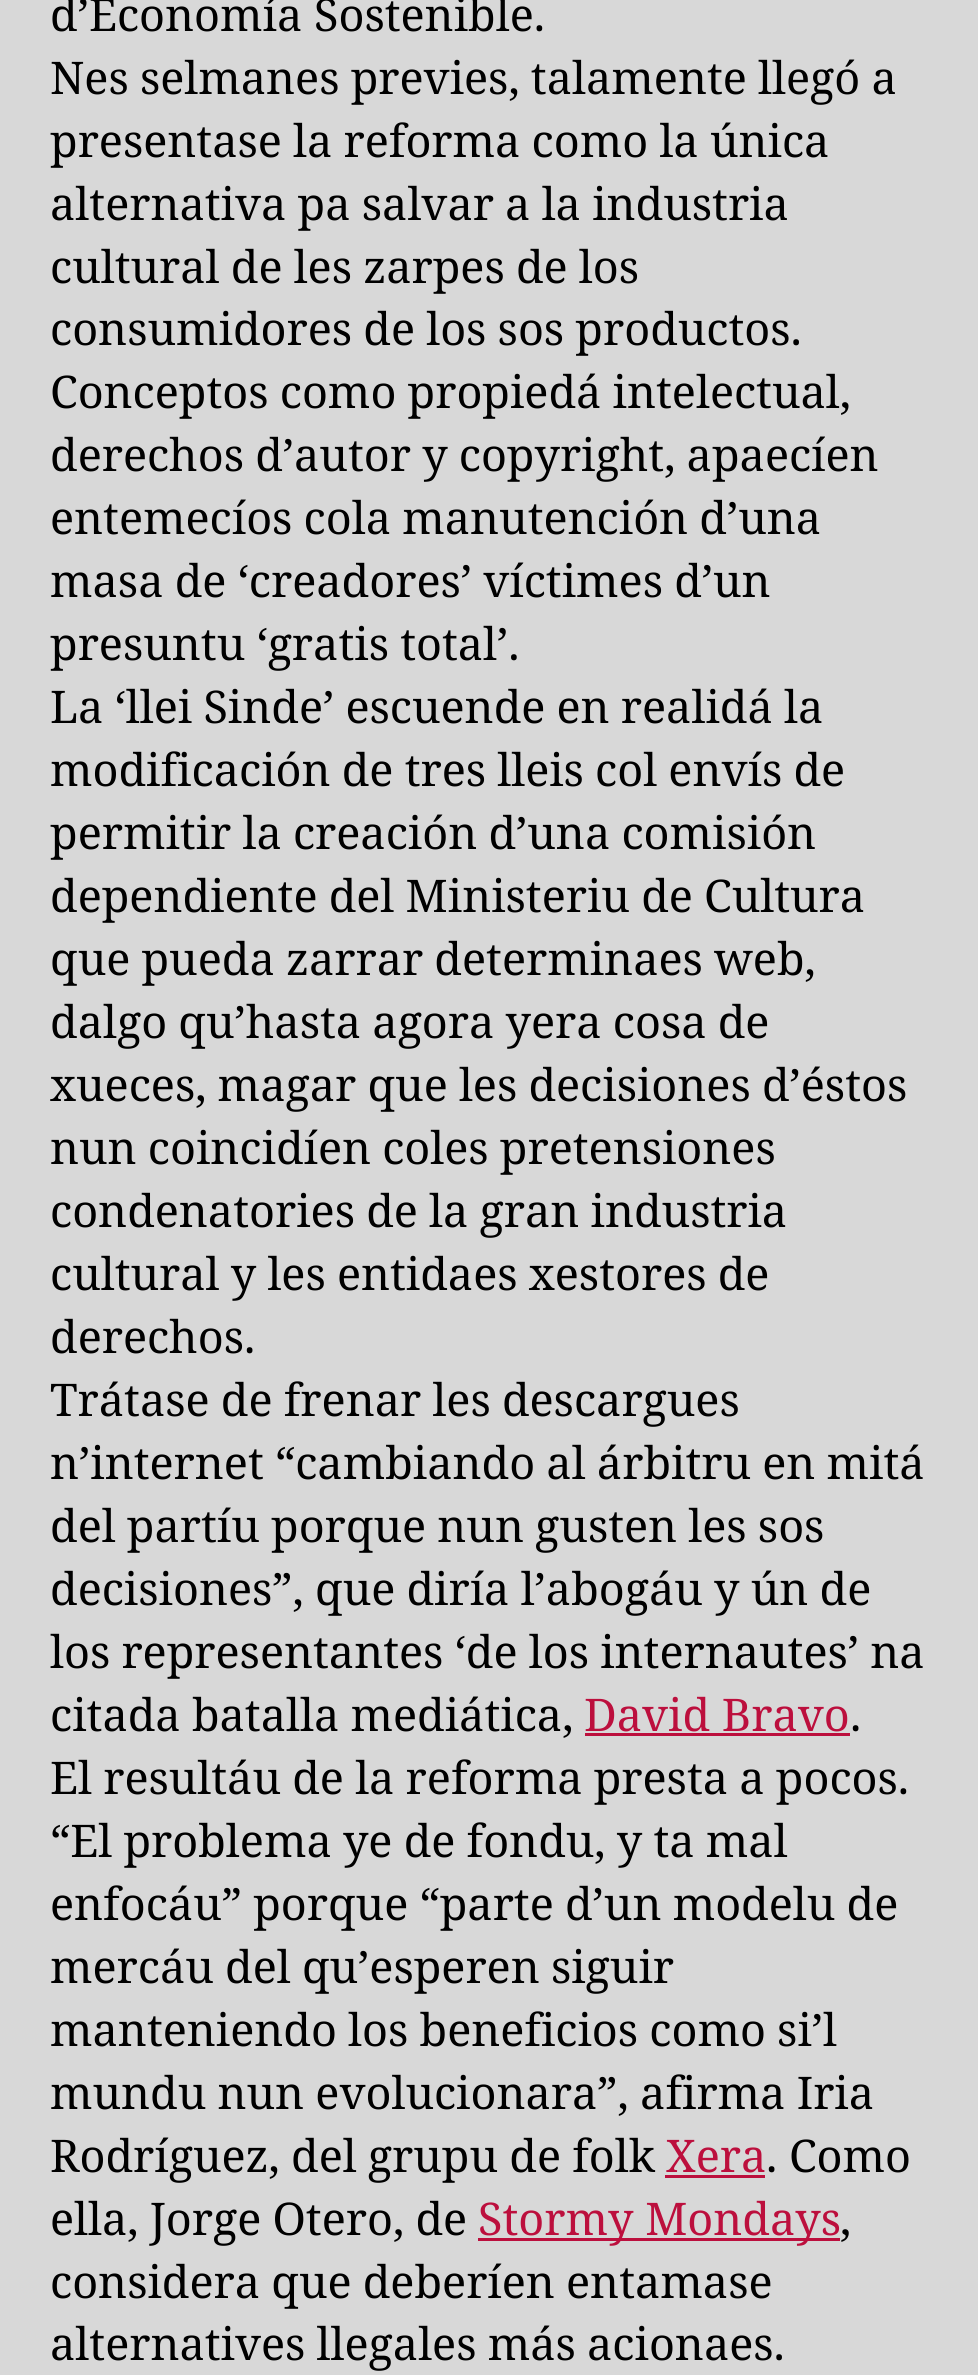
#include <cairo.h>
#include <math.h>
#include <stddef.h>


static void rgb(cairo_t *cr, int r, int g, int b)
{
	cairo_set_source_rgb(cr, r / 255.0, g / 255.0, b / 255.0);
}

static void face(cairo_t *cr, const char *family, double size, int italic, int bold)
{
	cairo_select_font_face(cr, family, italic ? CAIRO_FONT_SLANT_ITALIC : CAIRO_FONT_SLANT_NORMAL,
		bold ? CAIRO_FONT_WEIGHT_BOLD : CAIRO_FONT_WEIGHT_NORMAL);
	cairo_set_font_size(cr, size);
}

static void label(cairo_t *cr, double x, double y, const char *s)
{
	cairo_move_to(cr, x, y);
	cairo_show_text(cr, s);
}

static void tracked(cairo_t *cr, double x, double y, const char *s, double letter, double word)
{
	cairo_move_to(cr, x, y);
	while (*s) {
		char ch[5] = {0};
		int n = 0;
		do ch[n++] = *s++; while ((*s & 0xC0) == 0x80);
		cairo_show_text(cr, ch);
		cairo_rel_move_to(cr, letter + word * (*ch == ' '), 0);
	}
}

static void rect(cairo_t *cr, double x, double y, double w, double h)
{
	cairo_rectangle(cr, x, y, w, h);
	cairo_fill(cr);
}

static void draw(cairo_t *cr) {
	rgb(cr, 216, 216, 216);
	cairo_paint(cr);
	face(cr, "Noto Serif", 45, 0, 0);
	rgb(cr, 0, 0, 0);
	label(cr, 50, 31, "d’Economía Sostenible.");
	tracked(cr, 50, 94, "Nes selmanes previes, talamente llegó a", 0, -0.5);
	tracked(cr, 50, 157, "presentase la reforma como la única", 0, -0.5);
	tracked(cr, 50, 220, "alternativa pa salvar a la industria", 0, -0.5);
	tracked(cr, 50, 283, "cultural de les zarpes de los", 0, -0.5);
	tracked(cr, 50, 345, "consumidores de los sos productos.", 0, -0.5);
	tracked(cr, 50, 408, "Conceptos como propiedá intelectual,", 0, -0.5);
	tracked(cr, 50, 471, "derechos d’autor y copyright, apaecíen", 0, -0.5);
	tracked(cr, 50, 534, "entemecíos cola manutención d’una", 0, -0.5);
	tracked(cr, 50, 597, "masa de ‘creadores’ víctimes d’un", 0, -0.5);
	tracked(cr, 50, 660, "presuntu ‘gratis total’.", 0, -0.5);
	tracked(cr, 50, 723, "La ‘llei Sinde’ escuende en realidá la", 0, -0.5);
	tracked(cr, 50, 786, "modificación de tres lleis col envís de", 0, -0.5);
	tracked(cr, 50, 849, "permitir la creación d’una comisión", 0, -0.5);
	tracked(cr, 50, 912, "dependiente del Ministeriu de Cultura", 0, -0.5);
	tracked(cr, 50, 975, "que pueda zarrar determinaes web,", 0, -0.5);
	tracked(cr, 50, 1038, "dalgo qu’hasta agora yera cosa de", 0, -0.5);
	tracked(cr, 50, 1101, "xueces, magar que les decisiones d’éstos", 0, -0.5);
	tracked(cr, 50, 1164, "nun coincidíen coles pretensiones", 0, -0.5);
	tracked(cr, 50, 1227, "condenatories de la gran industria", 0, -0.5);
	tracked(cr, 50, 1290, "cultural y les entidaes xestores de", 0, -0.5);
	label(cr, 50, 1353, "derechos.");
	tracked(cr, 50, 1416, "Trátase de frenar les descargues", 0, -0.5);
	tracked(cr, 50, 1479, "n’internet “cambiando al árbitru en mitá", 0, -0.5);
	tracked(cr, 50, 1542, "del partíu porque nun gusten les sos", 0, -0.5);
	tracked(cr, 50, 1605, "decisiones”, que diría l’abogáu y ún de", 0, -0.5);
	tracked(cr, 50, 1668, "los representantes ‘de los internautes’ na", 0, -0.5);
	tracked(cr, 50, 1731, "citada batalla mediática,", 0, -0.5);
	rgb(cr, 188, 15, 61);
	label(cr, 584, 1731, "David Bravo");
	rect(cr, 585, 1733, 265, 3);
	rgb(cr, 0, 0, 0);
	label(cr, 850, 1731, ".");
	tracked(cr, 50, 1794, "El resultáu de la reforma presta a pocos.", 0, -0.5);
	tracked(cr, 50, 1857, "“El problema ye de fondu, y ta mal", 0, -0.5);
	tracked(cr, 50, 1920, "enfocáu” porque “parte d’un modelu de", 0, -0.5);
	tracked(cr, 50, 1983, "mercáu del qu’esperen siguir", 0, -0.5);
	tracked(cr, 50, 2046, "manteniendo los beneficios como si’l", 0, -0.5);
	tracked(cr, 50, 2109, "mundu nun evolucionara”, afirma Iria", 0, -0.5);
	tracked(cr, 50, 2172, "Rodríguez, del grupu de folk", 0, -0.5);
	rgb(cr, 188, 15, 61);
	label(cr, 666, 2172, "Xera");
	rect(cr, 665, 2175, 100, 3);
	rgb(cr, 0, 0, 0);
	label(cr, 766, 2172, ". Como");
	tracked(cr, 50, 2235, "ella, Jorge Otero, de", 0, -0.5);
	rgb(cr, 188, 15, 61);
	rect(cr, 478, 2238, 362, 3);
	label(cr, 478, 2235, "Stormy Mondays");
	rgb(cr, 0, 0, 0);
	label(cr, 840, 2235, ",");
	tracked(cr, 50, 2298, "considera que deberíen entamase", 0, -0.5);
	tracked(cr, 50, 2360, "alternatives llegales más acionaes.", 0, -0.5);
}

int main(void) {
	cairo_surface_t *surface = cairo_image_surface_create(CAIRO_FORMAT_RGB24, 978, 2375);
	cairo_t *cr = cairo_create(surface);
	cairo_font_options_t *options = cairo_font_options_create();
	cairo_font_options_set_hint_metrics(options, CAIRO_HINT_METRICS_OFF);
	cairo_font_options_set_hint_style(options, CAIRO_HINT_STYLE_NONE);
	cairo_set_font_options(cr, options);
	cairo_set_miter_limit(cr, 4);
	draw(cr);
	cairo_surface_write_to_png(surface, "render.png");
	cairo_font_options_destroy(options);
	cairo_destroy(cr);
	cairo_surface_destroy(surface);
	return 0;
}
